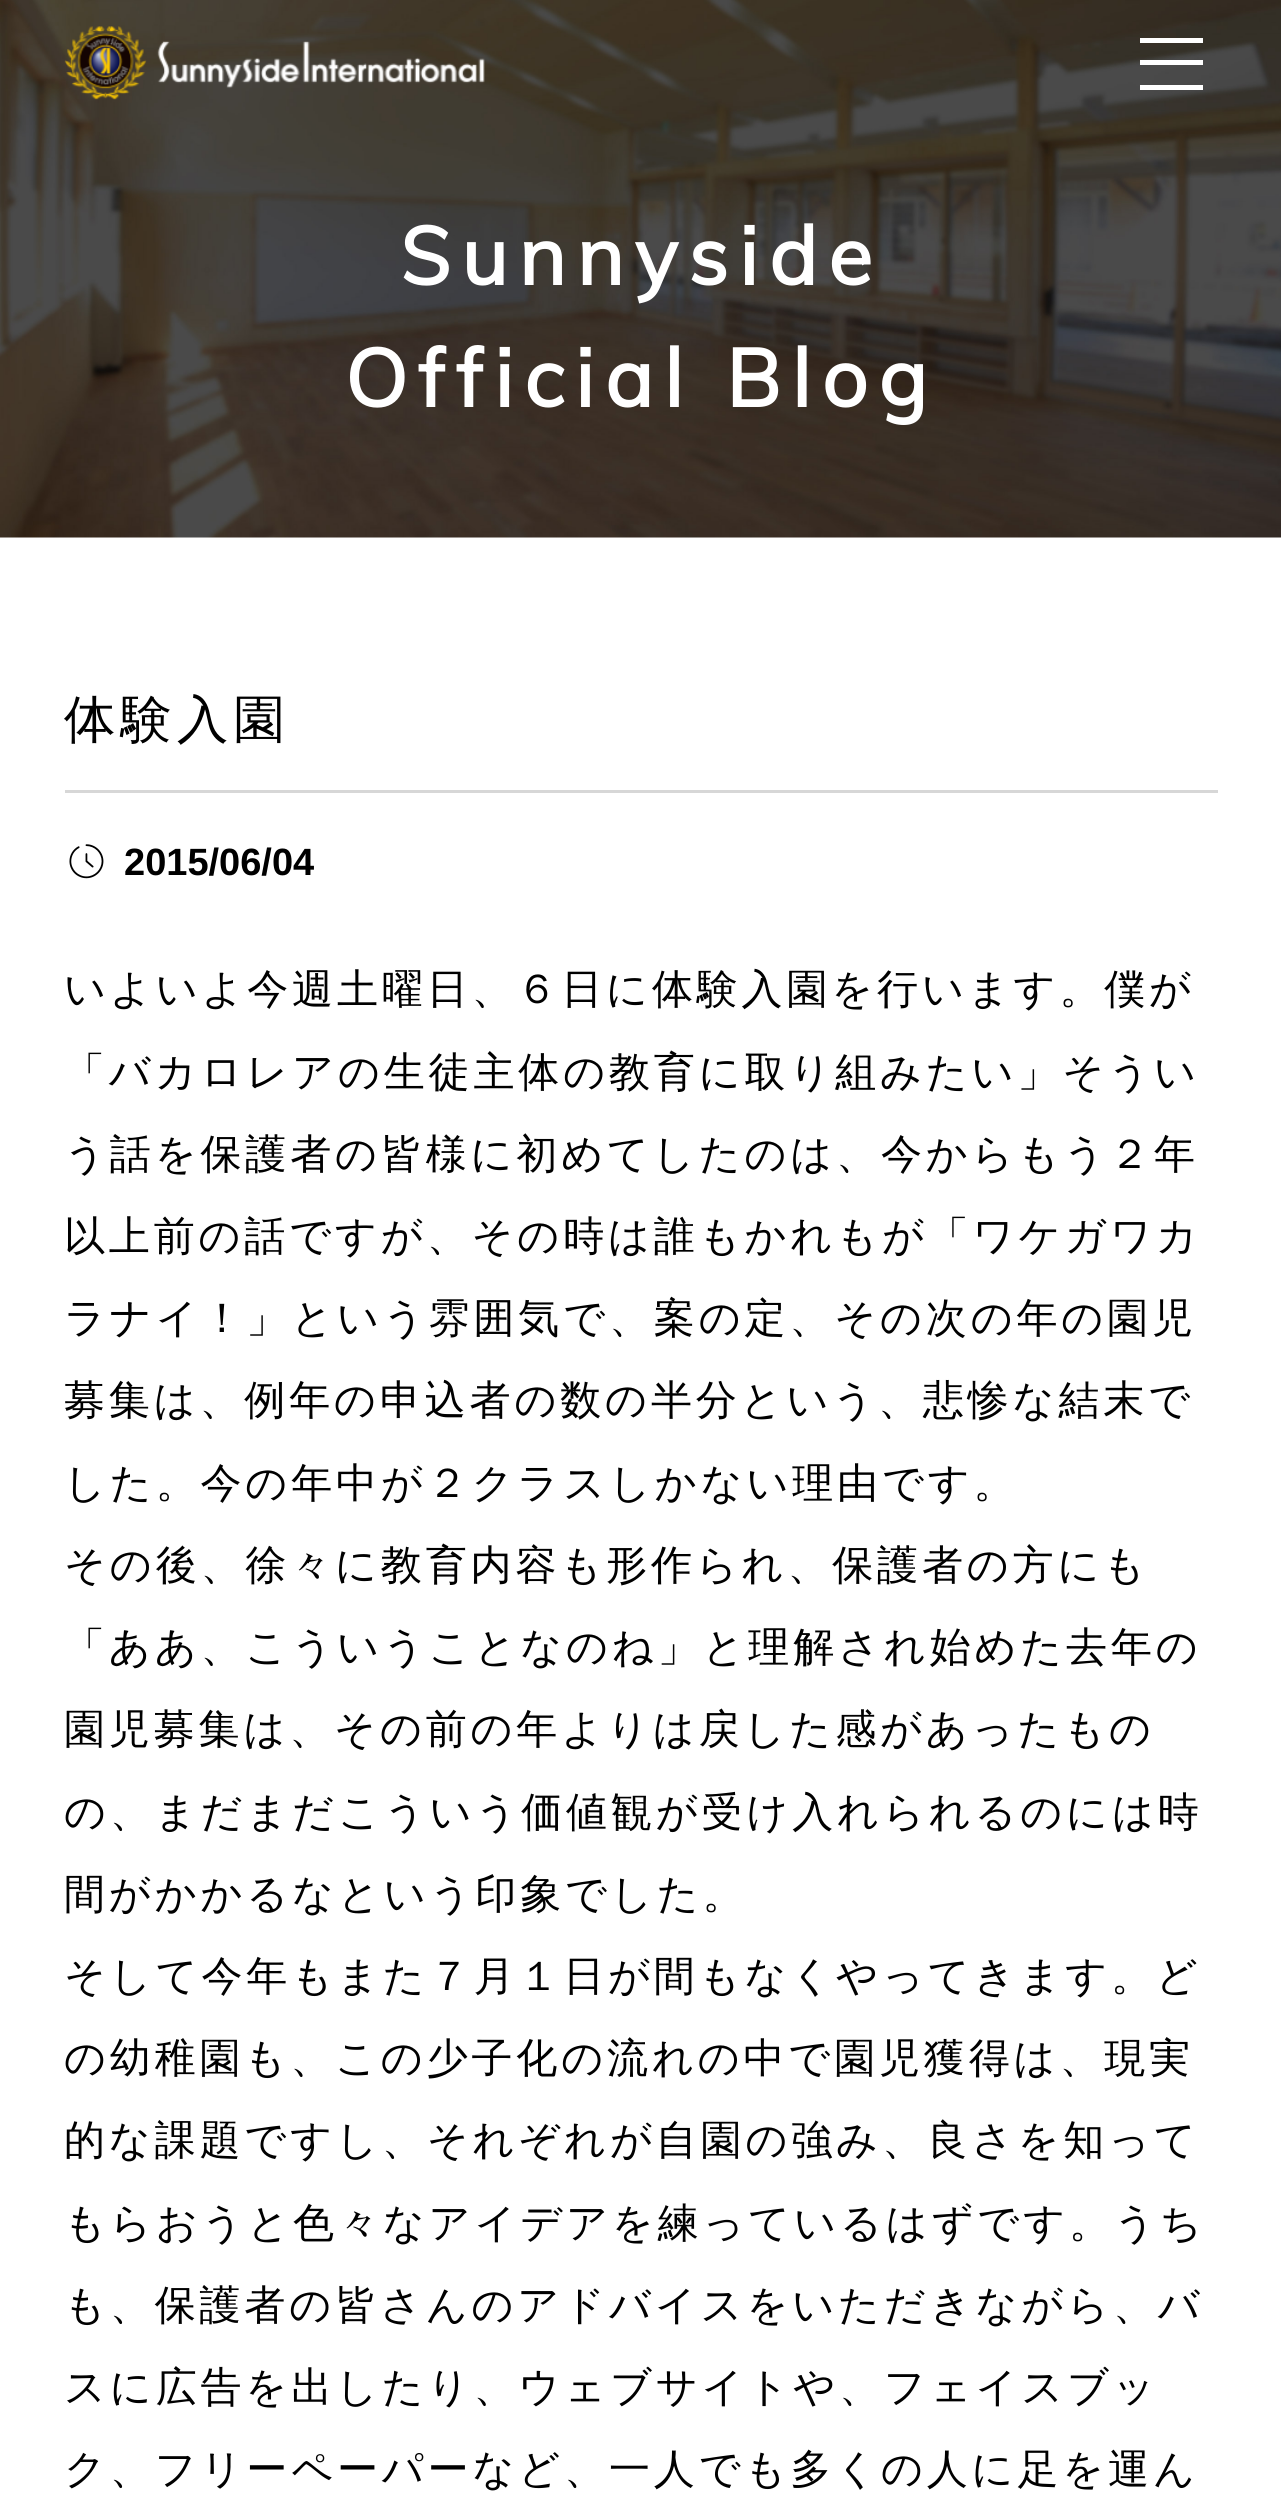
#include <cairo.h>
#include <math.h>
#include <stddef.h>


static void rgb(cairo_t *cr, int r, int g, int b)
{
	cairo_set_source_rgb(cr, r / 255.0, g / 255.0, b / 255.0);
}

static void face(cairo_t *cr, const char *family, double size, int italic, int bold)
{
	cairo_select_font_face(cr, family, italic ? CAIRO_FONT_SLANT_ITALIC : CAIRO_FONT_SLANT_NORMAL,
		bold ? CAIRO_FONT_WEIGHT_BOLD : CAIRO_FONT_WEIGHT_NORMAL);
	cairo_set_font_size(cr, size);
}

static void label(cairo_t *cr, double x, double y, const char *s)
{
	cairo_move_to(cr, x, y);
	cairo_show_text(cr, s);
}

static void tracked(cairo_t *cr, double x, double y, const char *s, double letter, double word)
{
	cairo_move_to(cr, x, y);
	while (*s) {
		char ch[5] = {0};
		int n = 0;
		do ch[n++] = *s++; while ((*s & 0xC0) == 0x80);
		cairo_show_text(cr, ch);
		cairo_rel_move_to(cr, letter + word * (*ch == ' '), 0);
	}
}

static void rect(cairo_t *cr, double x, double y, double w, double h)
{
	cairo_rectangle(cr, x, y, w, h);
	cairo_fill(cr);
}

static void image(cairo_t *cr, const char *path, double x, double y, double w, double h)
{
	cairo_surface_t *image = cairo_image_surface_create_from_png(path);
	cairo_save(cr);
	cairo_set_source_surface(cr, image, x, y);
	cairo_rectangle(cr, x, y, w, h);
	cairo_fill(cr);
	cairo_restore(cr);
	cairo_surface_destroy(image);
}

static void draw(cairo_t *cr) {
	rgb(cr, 255, 255, 255);
	cairo_paint(cr);
	image(cr, "image1.png", 0, 0, 1281, 538);
	image(cr, "image0.png", 64, 26, 421, 74);
	rgb(cr, 255, 255, 255);
	rect(cr, 1140, 38, 63, 5);
	rect(cr, 1140, 60, 63, 5);
	rect(cr, 1140, 85, 63, 5);
	face(cr, "Muli", 80.75, 0, 1);
	tracked(cr, 400, 285, "Sunnyside", 10.75, 0);
	tracked(cr, 345, 407, "Official Blog", 10.75, 0);
	rgb(cr, 215, 215, 215);
	rect(cr, 65, 790, 1153, 3);
	face(cr, "WenQuanYi Zen Hei Medium", 51.5, 0, 0);
	rgb(cr, 0, 0, 0);
	tracked(cr, 64, 737, "体験入園", 5, 0);
	image(cr, "image2.png", 69, 844, 35, 35);
	face(cr, "Liberation Sans", 38, 0, 1);
	label(cr, 124, 875, "2015/06/04");
	face(cr, "WenQuanYi Zen Hei Medium", 41.1, 0, 0);
	tracked(cr, 64, 1003, "いよいよ今週土曜日、６日に体験入園を行います。僕が", 3.75, 0);
	tracked(cr, 64, 1086, "「バカロレアの生徒主体の教育に取り組みたい」そうい", 3.75, 0);
	tracked(cr, 64, 1168, "う話を保護者の皆様に初めてしたのは、今からもう２年", 3.75, 0);
	tracked(cr, 64, 1250, "以上前の話ですが、その時は誰もかれもが「ワケガワカ", 3.75, 0);
	tracked(cr, 64, 1332, "ラナイ！」という雰囲気で、案の定、その次の年の園児", 3.75, 0);
	tracked(cr, 64, 1414, "募集は、例年の申込者の数の半分という、悲惨な結末で", 3.75, 0);
	tracked(cr, 64, 1497, "した。今の年中が２クラスしかない理由です。", 3.75, 0);
	tracked(cr, 64, 1579, "その後、徐々に教育内容も形作られ、保護者の方にも", 3.75, 0);
	tracked(cr, 64, 1661, "「ああ、こういうことなのね」と理解され始めた去年の", 3.75, 0);
	tracked(cr, 64, 1743, "園児募集は、その前の年よりは戻した感があったもの", 3.75, 0);
	tracked(cr, 64, 1826, "の、まだまだこういう価値観が受け入れられるのには時", 3.75, 0);
	tracked(cr, 64, 1908, "間がかかるなという印象でした。", 3.75, 0);
	tracked(cr, 64, 1990, "そして今年もまた７月１日が間もなくやってきます。ど", 3.75, 0);
	tracked(cr, 64, 2072, "の幼稚園も、この少子化の流れの中で園児獲得は、現実", 3.75, 0);
	tracked(cr, 64, 2154, "的な課題ですし、それぞれが自園の強み、良さを知って", 3.75, 0);
	tracked(cr, 64, 2237, "もらおうと色々なアイデアを練っているはずです。うち", 3.75, 0);
	tracked(cr, 64, 2319, "も、保護者の皆さんのアドバイスをいただきながら、バ", 3.75, 0);
	tracked(cr, 64, 2401, "スに広告を出したり、ウェブサイトや、フェイスブッ", 3.75, 0);
	tracked(cr, 64, 2483, "ク、フリーペーパーなど、一人でも多くの人に足を運ん", 3.75, 0);
}

int main(void) {
	cairo_surface_t *surface = cairo_image_surface_create(CAIRO_FORMAT_RGB24, 1281, 2507);
	cairo_t *cr = cairo_create(surface);
	cairo_font_options_t *options = cairo_font_options_create();
	cairo_font_options_set_hint_metrics(options, CAIRO_HINT_METRICS_OFF);
	cairo_font_options_set_hint_style(options, CAIRO_HINT_STYLE_NONE);
	cairo_set_font_options(cr, options);
	cairo_set_miter_limit(cr, 4);
	draw(cr);
	cairo_surface_write_to_png(surface, "render.png");
	cairo_font_options_destroy(options);
	cairo_destroy(cr);
	cairo_surface_destroy(surface);
	return 0;
}
